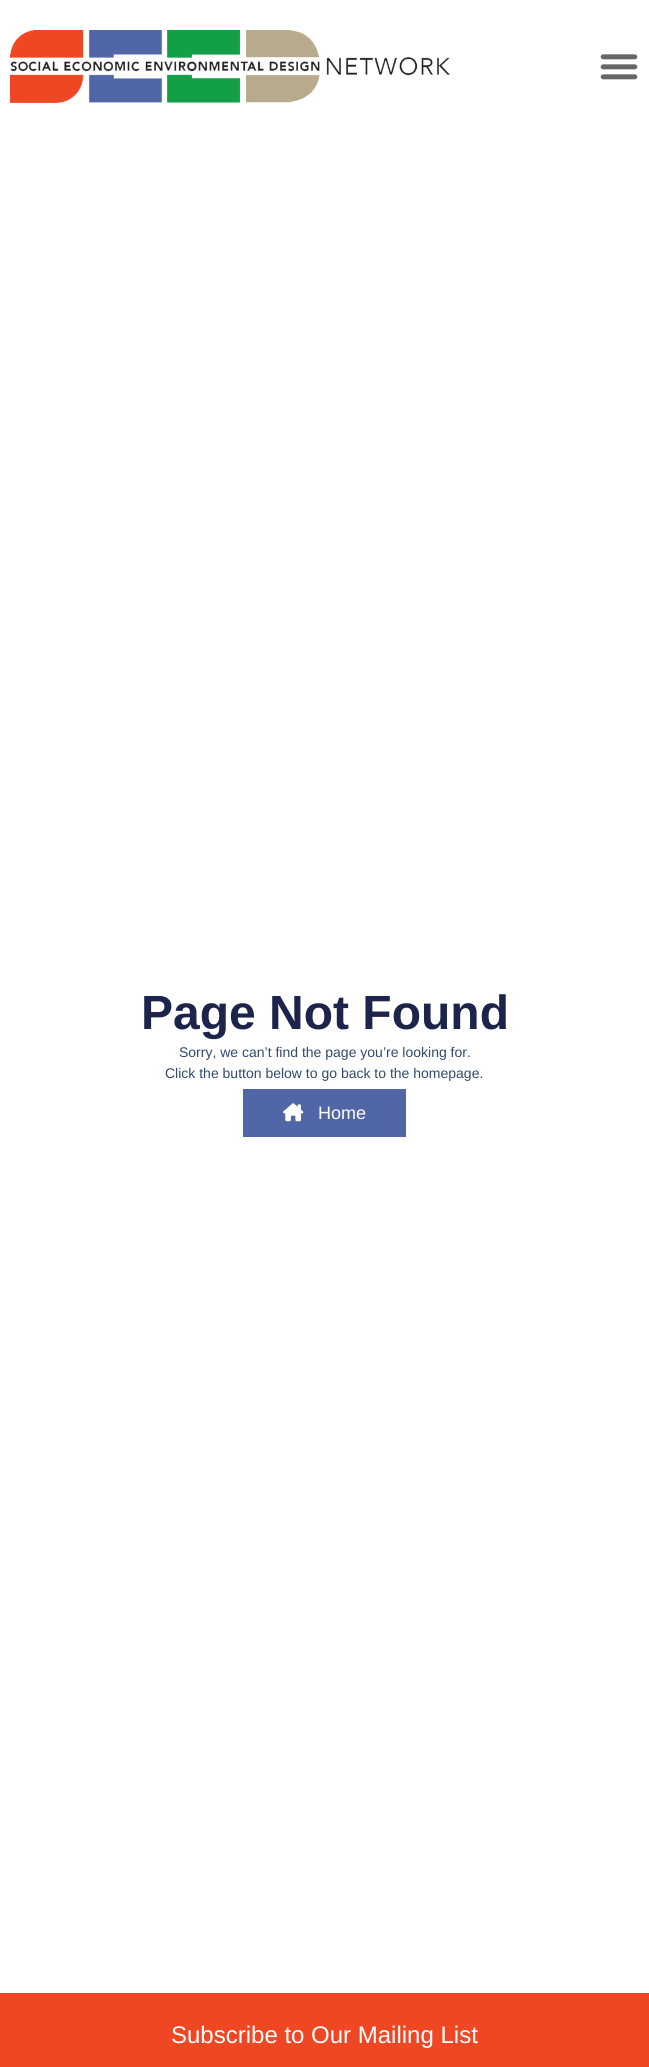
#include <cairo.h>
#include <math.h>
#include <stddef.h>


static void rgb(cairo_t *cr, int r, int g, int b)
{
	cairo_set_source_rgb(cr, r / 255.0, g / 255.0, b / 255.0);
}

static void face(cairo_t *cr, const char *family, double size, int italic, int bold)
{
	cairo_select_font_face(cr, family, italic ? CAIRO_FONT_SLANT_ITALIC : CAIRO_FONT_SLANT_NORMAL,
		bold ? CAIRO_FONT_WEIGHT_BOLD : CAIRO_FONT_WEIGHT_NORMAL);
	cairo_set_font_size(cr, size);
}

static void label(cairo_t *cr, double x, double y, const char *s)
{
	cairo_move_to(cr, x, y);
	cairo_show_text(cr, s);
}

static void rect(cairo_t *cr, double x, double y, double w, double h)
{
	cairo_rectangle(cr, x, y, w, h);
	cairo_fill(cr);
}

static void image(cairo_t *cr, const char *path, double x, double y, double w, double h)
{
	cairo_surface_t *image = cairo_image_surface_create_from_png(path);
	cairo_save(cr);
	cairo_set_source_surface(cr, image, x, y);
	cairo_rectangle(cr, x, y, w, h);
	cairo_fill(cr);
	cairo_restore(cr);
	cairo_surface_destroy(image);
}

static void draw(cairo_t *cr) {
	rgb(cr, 255, 255, 255);
	cairo_paint(cr);
	image(cr, "image0.png", 10, 30, 440, 73);
	image(cr, "image1.png", 600, 54, 38, 26);
	face(cr, "Liberation Sans", 48, 0, 1);
	rgb(cr, 28, 36, 75);
	label(cr, 141, 1029, "Page Not Found");
	face(cr, "Liberation Sans", 14, 0, 0);
	rgb(cr, 50, 74, 109);
	label(cr, 179, 1057, "Sorry, we can’t find the page you’re looking for.");
	label(cr, 165, 1078, "Click the button below to go back to the homepage.");
	rgb(cr, 81, 102, 167);
	rect(cr, 243, 1089, 163, 48);
	image(cr, "image2.png", 283, 1103, 21, 19);
	face(cr, "Liberation Sans", 18, 0, 0);
	rgb(cr, 255, 255, 255);
	label(cr, 318, 1119, "Home");
	rgb(cr, 239, 71, 35);
	rect(cr, 0, 1993, 649, 74);
	face(cr, "Liberation Sans", 24, 0, 0);
	rgb(cr, 255, 255, 255);
	label(cr, 171, 2043, "Subscribe to Our Mailing List");
}

int main(void) {
	cairo_surface_t *surface = cairo_image_surface_create(CAIRO_FORMAT_RGB24, 649, 2067);
	cairo_t *cr = cairo_create(surface);
	cairo_font_options_t *options = cairo_font_options_create();
	cairo_font_options_set_hint_metrics(options, CAIRO_HINT_METRICS_OFF);
	cairo_font_options_set_hint_style(options, CAIRO_HINT_STYLE_NONE);
	cairo_set_font_options(cr, options);
	cairo_set_miter_limit(cr, 4);
	draw(cr);
	cairo_surface_write_to_png(surface, "render.png");
	cairo_font_options_destroy(options);
	cairo_destroy(cr);
	cairo_surface_destroy(surface);
	return 0;
}
